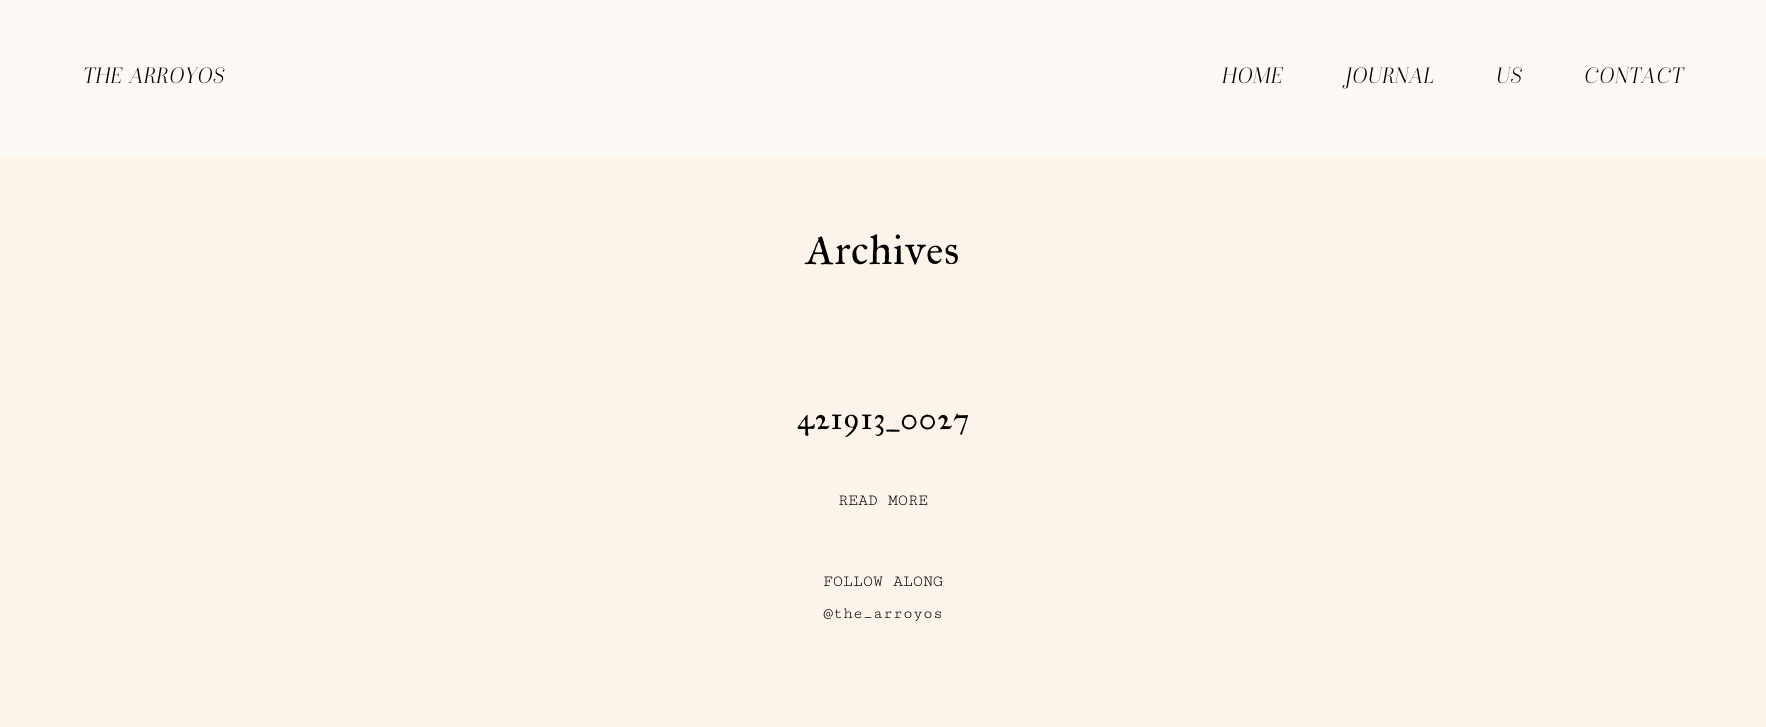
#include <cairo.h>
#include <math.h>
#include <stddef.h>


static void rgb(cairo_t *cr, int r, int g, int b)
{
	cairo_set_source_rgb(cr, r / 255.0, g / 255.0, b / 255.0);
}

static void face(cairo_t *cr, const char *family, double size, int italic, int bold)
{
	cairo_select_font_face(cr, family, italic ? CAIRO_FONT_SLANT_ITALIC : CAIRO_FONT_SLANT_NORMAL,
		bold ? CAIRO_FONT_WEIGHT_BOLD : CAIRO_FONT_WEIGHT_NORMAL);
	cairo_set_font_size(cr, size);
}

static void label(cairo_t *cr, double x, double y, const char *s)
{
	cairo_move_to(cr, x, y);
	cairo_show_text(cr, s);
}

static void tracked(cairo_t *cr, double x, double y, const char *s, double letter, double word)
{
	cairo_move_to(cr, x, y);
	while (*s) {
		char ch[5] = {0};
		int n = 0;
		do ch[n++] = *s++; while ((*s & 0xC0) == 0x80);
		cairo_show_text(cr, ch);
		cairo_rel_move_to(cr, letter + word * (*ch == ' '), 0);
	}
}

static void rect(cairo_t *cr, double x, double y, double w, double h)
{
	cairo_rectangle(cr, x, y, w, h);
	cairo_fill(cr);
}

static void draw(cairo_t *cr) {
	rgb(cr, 252, 244, 234);
	cairo_paint(cr);
	rgb(cr, 253, 249, 245);
	rect(cr, 0, 0, 1766, 157);
	face(cr, "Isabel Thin", 23.5, 0, 0);
	rgb(cr, 0, 0, 0);
	tracked(cr, 83, 83, "THE ARROYOS", 0.4, 0);
	tracked(cr, 1222, 83, "HOME", 0.4, 0);
	tracked(cr, 1346, 83, "JOURNAL", 0.4, 0);
	tracked(cr, 1496, 83, "US", 0.4, 0);
	tracked(cr, 1584, 83, "CONTACT", 0.4, 0);
	face(cr, "IM FELL Great Primer", 41.5, 0, 0);
	tracked(cr, 806, 264, "Archives", 0.75, 0);
	face(cr, "IM FELL Great Primer", 30.5, 0, 0);
	tracked(cr, 797, 429, "421913_0027", 0.75, 0);
	face(cr, "Cutive Mono", 16.5, 0, 0);
	label(cr, 838, 505, "READ MORE");
	label(cr, 823, 586, "FOLLOW ALONG");
	label(cr, 823, 618, "@the_arroyos");
}

int main(void) {
	cairo_surface_t *surface = cairo_image_surface_create(CAIRO_FORMAT_RGB24, 1766, 727);
	cairo_t *cr = cairo_create(surface);
	cairo_font_options_t *options = cairo_font_options_create();
	cairo_font_options_set_hint_metrics(options, CAIRO_HINT_METRICS_OFF);
	cairo_font_options_set_hint_style(options, CAIRO_HINT_STYLE_NONE);
	cairo_set_font_options(cr, options);
	cairo_set_miter_limit(cr, 4);
	draw(cr);
	cairo_surface_write_to_png(surface, "render.png");
	cairo_font_options_destroy(options);
	cairo_destroy(cr);
	cairo_surface_destroy(surface);
	return 0;
}
